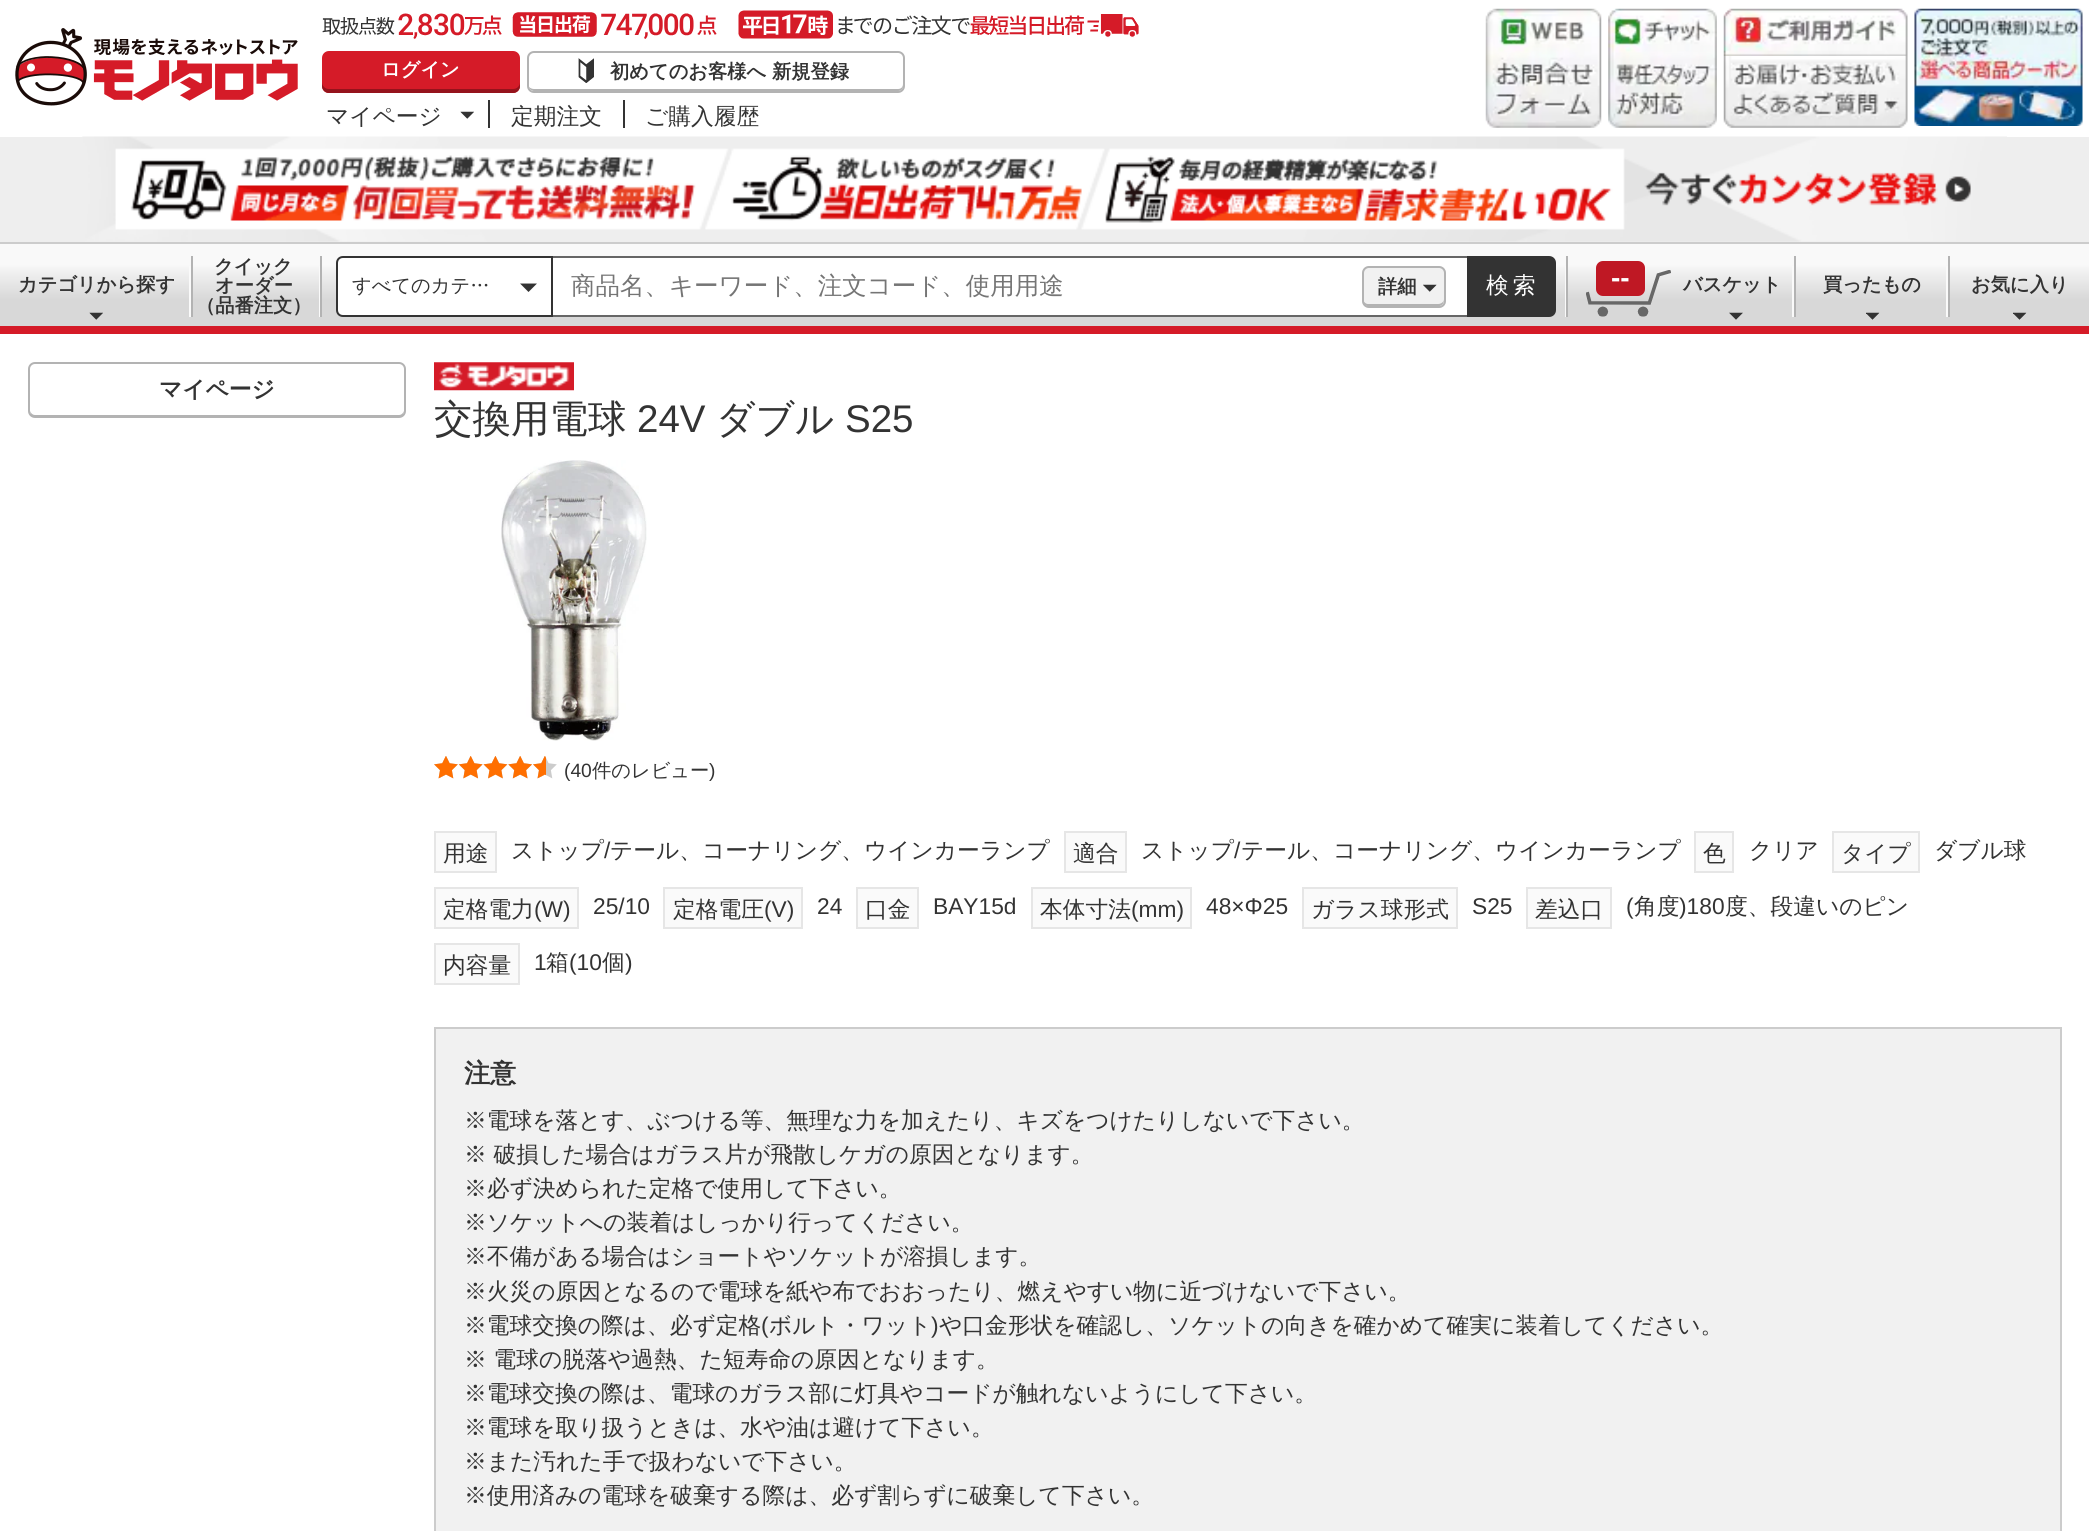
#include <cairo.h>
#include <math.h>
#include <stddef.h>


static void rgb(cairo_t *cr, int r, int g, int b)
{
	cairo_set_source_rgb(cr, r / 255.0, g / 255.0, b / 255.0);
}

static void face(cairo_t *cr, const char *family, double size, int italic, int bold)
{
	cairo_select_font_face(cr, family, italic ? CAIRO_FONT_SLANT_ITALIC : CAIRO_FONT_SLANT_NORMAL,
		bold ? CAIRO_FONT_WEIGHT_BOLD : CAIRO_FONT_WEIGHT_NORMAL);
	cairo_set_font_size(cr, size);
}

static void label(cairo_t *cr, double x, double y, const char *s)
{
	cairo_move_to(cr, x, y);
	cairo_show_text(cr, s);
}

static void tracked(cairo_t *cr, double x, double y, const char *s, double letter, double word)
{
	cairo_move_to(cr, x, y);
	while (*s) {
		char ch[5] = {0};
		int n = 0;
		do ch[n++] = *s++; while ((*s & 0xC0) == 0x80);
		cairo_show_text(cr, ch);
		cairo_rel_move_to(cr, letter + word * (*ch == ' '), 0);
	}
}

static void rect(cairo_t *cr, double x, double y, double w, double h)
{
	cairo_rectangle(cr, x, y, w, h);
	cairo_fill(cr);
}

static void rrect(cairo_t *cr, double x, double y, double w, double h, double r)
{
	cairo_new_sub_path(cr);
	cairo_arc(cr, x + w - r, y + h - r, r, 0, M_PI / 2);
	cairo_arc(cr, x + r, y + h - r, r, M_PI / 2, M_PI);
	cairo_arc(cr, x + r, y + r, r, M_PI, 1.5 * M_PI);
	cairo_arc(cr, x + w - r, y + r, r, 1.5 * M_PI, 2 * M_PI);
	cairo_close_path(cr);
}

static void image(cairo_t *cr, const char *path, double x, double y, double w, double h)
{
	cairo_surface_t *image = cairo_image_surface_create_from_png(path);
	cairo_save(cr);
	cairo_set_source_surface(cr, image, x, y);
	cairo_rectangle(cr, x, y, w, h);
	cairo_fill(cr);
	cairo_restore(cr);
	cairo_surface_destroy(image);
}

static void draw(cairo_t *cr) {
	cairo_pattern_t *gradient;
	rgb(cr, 255, 255, 255);
	cairo_paint(cr);
	image(cr, "image0.png", 15, 28, 283, 78);
	image(cr, "image1.png", 322, 10, 817, 29);
	rgb(cr, 213, 27, 40);
	rrect(cr, 322, 51, 198, 42, 7);
	cairo_fill(cr);
	rgb(cr, 149, 19, 28);
	cairo_new_path(cr);
	cairo_move_to(cr, 322, 82);
	cairo_line_to(cr, 322, 86);
	cairo_curve_to(cr, 322, 90, 325, 93, 329, 93);
	cairo_line_to(cr, 513, 93);
	cairo_curve_to(cr, 517, 93, 520, 90, 520, 86);
	cairo_line_to(cr, 520, 82);
	cairo_curve_to(cr, 520, 86, 517, 89, 513, 89);
	cairo_line_to(cr, 329, 89);
	cairo_curve_to(cr, 325, 89, 322, 86, 322, 82);
	cairo_close_path(cr);
	cairo_fill(cr);
	face(cr, "WenQuanYi Zen Hei", 19.25, 0, 1);
	rgb(cr, 255, 255, 255);
	label(cr, 381, 76, "ログイン");
	rgb(cr, 179, 179, 179);
	cairo_new_path(cr);
	cairo_move_to(cr, 529, 87);
	cairo_curve_to(cr, 529, 89, 532, 91, 534, 91);
	cairo_line_to(cr, 898, 91);
	cairo_curve_to(cr, 901, 91, 903, 89, 903, 86);
	cairo_line_to(cr, 903, 84);
	cairo_curve_to(cr, 903, 87, 901, 89, 898, 89);
	cairo_line_to(cr, 534, 89);
	cairo_curve_to(cr, 532, 89, 530, 88, 529, 87);
	cairo_close_path(cr);
	cairo_fill(cr);
	rrect(cr, 528, 52, 376, 40, 6);
	cairo_stroke(cr);
	image(cr, "image2.png", 578, 58, 16, 25);
	rgb(cr, 51, 51, 51);
	label(cr, 610, 78, "初めてのお客様へ 新規登録");
	rect(cr, 488, 100, 2, 28);
	face(cr, "WenQuanYi Zen Hei Medium", 22.75, 0, 0);
	label(cr, 326, 124, "マイページ");
	image(cr, "image3.png", 460, 111, 14, 8);
	rect(cr, 623, 100, 2, 28);
	label(cr, 511, 124, "定期注文");
	label(cr, 645, 124, "ご購入履歴");
	image(cr, "image4.png", 1485, 8, 117, 120);
	image(cr, "image5.png", 1608, 8, 109, 120);
	image(cr, "image6.png", 1723, 8, 185, 48);
	image(cr, "image7.png", 1723, 56, 185, 72);
	image(cr, "image8.png", 1914, 8, 169, 118);
	rgb(cr, 238, 238, 238);
	rect(cr, 0, 137, 2089, 105);
	image(cr, "image9.png", 82, 136, 1925, 106);
	rgb(cr, 213, 27, 40);
	rect(cr, 0, 326, 2089, 8);
	gradient = cairo_pattern_create_linear(96, 243, 96, 326);
	cairo_pattern_add_color_stop_rgba(gradient, 0.26, 0.976, 0.976, 0.976, 1);
	cairo_pattern_add_color_stop_rgba(gradient, 0.34, 0.945, 0.945, 0.945, 1);
	cairo_pattern_add_color_stop_rgba(gradient, 0.68, 0.847, 0.847, 0.847, 1);
	cairo_set_source(cr, gradient);
	cairo_pattern_destroy(gradient);
	rect(cr, 0, 244, 193, 82);
	rgb(cr, 204, 204, 204);
	rect(cr, 0, 242, 2089, 2);
	face(cr, "WenQuanYi Zen Hei", 19.25, 0, 1);
	rgb(cr, 51, 51, 51);
	label(cr, 18, 291, "カテゴリから探す");
	rgb(cr, 250, 250, 250);
	rect(cr, 189, 266, 2, 51);
	rgb(cr, 179, 179, 179);
	rect(cr, 191, 256, 2, 61);
	image(cr, "image10.png", 89, 312, 14, 8);
	gradient = cairo_pattern_create_linear(257, 243, 257, 326);
	cairo_pattern_add_color_stop_rgba(gradient, 0.26, 0.976, 0.976, 0.976, 1);
	cairo_pattern_add_color_stop_rgba(gradient, 0.34, 0.945, 0.945, 0.945, 1);
	cairo_pattern_add_color_stop_rgba(gradient, 0.68, 0.847, 0.847, 0.847, 1);
	cairo_set_source(cr, gradient);
	cairo_pattern_destroy(gradient);
	rect(cr, 193, 244, 129, 82);
	rgb(cr, 51, 51, 51);
	label(cr, 214, 273, "クイック");
	label(cr, 215, 292, "オーダー");
	rgb(cr, 250, 250, 250);
	rect(cr, 319, 266, 1, 51);
	rgb(cr, 179, 179, 179);
	rect(cr, 320, 256, 2, 61);
	rgb(cr, 51, 51, 51);
	label(cr, 196, 312, "（品番注文）");
	gradient = cairo_pattern_create_linear(945, 243, 945, 326);
	cairo_pattern_add_color_stop_rgba(gradient, 0.26, 0.976, 0.976, 0.976, 1);
	cairo_pattern_add_color_stop_rgba(gradient, 0.34, 0.945, 0.945, 0.945, 1);
	cairo_pattern_add_color_stop_rgba(gradient, 0.68, 0.847, 0.847, 0.847, 1);
	cairo_set_source(cr, gradient);
	cairo_pattern_destroy(gradient);
	rect(cr, 322, 244, 1246, 82);
	rgb(cr, 255, 255, 255);
	cairo_new_path(cr);
	cairo_move_to(cr, 343, 257);
	cairo_line_to(cr, 552, 257);
	cairo_line_to(cr, 552, 316);
	cairo_line_to(cr, 343, 316);
	cairo_curve_to(cr, 339.5, 316, 337, 313.5, 337, 310);
	cairo_line_to(cr, 337, 263);
	cairo_curve_to(cr, 337, 259.5, 339.5, 257, 343, 257);
	cairo_close_path(cr);
	cairo_fill_preserve(cr);
	rgb(cr, 51, 51, 51);
	cairo_stroke(cr);
	face(cr, "WenQuanYi Zen Hei Medium", 19.25, 0, 0);
	label(cr, 352, 292, "すべてのカテ…");
	cairo_new_path(cr);
	cairo_move_to(cr, 528.5, 292);
	cairo_line_to(cr, 537, 283.5);
	cairo_line_to(cr, 520, 283.5);
	cairo_close_path(cr);
	cairo_fill(cr);
	rgb(cr, 255, 255, 255);
	rect(cr, 553, 258, 914, 57);
	face(cr, "WenQuanYi Zen Hei Medium", 24.5, 0, 0);
	rgb(cr, 117, 117, 117);
	label(cr, 571, 294, "商品名、キーワード、注文コード、使用用途");
	rgb(cr, 102, 102, 102);
	rect(cr, 553, 256, 914, 2);
	rect(cr, 553, 315, 914, 2);
	rgb(cr, 241, 241, 241);
	rrect(cr, 1362, 266, 84, 42, 7);
	cairo_fill(cr);
	rgb(cr, 179, 179, 179);
	cairo_new_path(cr);
	cairo_move_to(cr, 1363, 299);
	cairo_curve_to(cr, 1363, 309, 1372, 306, 1380, 306);
	cairo_line_to(cr, 1427, 306);
	cairo_curve_to(cr, 1435, 306, 1444, 309, 1444, 299);
	cairo_curve_to(cr, 1444, 302, 1441, 304, 1438, 304);
	cairo_line_to(cr, 1368, 304);
	cairo_curve_to(cr, 1366, 304, 1363, 302, 1363, 299);
	cairo_close_path(cr);
	cairo_fill(cr);
	rrect(cr, 1363, 267, 82, 40, 6);
	cairo_stroke(cr);
	face(cr, "WenQuanYi Zen Hei", 19.25, 0, 1);
	rgb(cr, 51, 51, 51);
	label(cr, 1378, 293, "詳細");
	image(cr, "image11.png", 1423, 284, 14, 8);
	cairo_new_path(cr);
	cairo_move_to(cr, 1467, 256);
	cairo_line_to(cr, 1549, 256);
	cairo_curve_to(cr, 1553, 256, 1556, 259, 1556, 263);
	cairo_line_to(cr, 1556, 310);
	cairo_curve_to(cr, 1556, 314, 1553, 317, 1549, 317);
	cairo_line_to(cr, 1467, 317);
	cairo_close_path(cr);
	cairo_fill(cr);
	face(cr, "WenQuanYi Zen Hei Medium", 22.75, 0, 0);
	rgb(cr, 255, 255, 255);
	tracked(cr, 1486, 293, "検索", 4, 0);
	rgb(cr, 250, 250, 250);
	rect(cr, 1565, 266, 1, 51);
	rgb(cr, 179, 179, 179);
	rect(cr, 1566, 256, 2, 61);
	gradient = cairo_pattern_create_linear(1682, 243, 1682, 326);
	cairo_pattern_add_color_stop_rgba(gradient, 0.26, 0.976, 0.976, 0.976, 1);
	cairo_pattern_add_color_stop_rgba(gradient, 0.34, 0.945, 0.945, 0.945, 1);
	cairo_pattern_add_color_stop_rgba(gradient, 0.68, 0.847, 0.847, 0.847, 1);
	cairo_set_source(cr, gradient);
	cairo_pattern_destroy(gradient);
	rect(cr, 1568, 244, 228, 82);
	rgb(cr, 191, 24, 36);
	rrect(cr, 1596, 261, 49, 35, 7);
	cairo_fill(cr);
	face(cr, "Liberation Sans", 28, 0, 1);
	rgb(cr, 255, 255, 255);
	label(cr, 1611, 287, "--");
	image(cr, "image12.png", 1586, 270, 85, 47);
	face(cr, "WenQuanYi Zen Hei", 19.25, 0, 1);
	rgb(cr, 51, 51, 51);
	label(cr, 1683, 291, "バスケット");
	rgb(cr, 250, 250, 250);
	rect(cr, 1792, 266, 2, 51);
	rgb(cr, 179, 179, 179);
	rect(cr, 1794, 256, 2, 61);
	image(cr, "image13.png", 1729, 312, 14, 8);
	gradient = cairo_pattern_create_linear(1873, 243, 1873, 326);
	cairo_pattern_add_color_stop_rgba(gradient, 0.26, 0.976, 0.976, 0.976, 1);
	cairo_pattern_add_color_stop_rgba(gradient, 0.34, 0.945, 0.945, 0.945, 1);
	cairo_pattern_add_color_stop_rgba(gradient, 0.68, 0.847, 0.847, 0.847, 1);
	cairo_set_source(cr, gradient);
	cairo_pattern_destroy(gradient);
	rect(cr, 1796, 244, 154, 82);
	rgb(cr, 51, 51, 51);
	label(cr, 1823, 291, "買ったもの");
	rgb(cr, 250, 250, 250);
	rect(cr, 1946, 266, 2, 51);
	rgb(cr, 179, 179, 179);
	rect(cr, 1948, 256, 2, 61);
	image(cr, "image14.png", 1866, 312, 14, 8);
	gradient = cairo_pattern_create_linear(2020, 243, 2020, 326);
	cairo_pattern_add_color_stop_rgba(gradient, 0.26, 0.976, 0.976, 0.976, 1);
	cairo_pattern_add_color_stop_rgba(gradient, 0.34, 0.945, 0.945, 0.945, 1);
	cairo_pattern_add_color_stop_rgba(gradient, 0.68, 0.847, 0.847, 0.847, 1);
	cairo_set_source(cr, gradient);
	cairo_pattern_destroy(gradient);
	rect(cr, 1950, 244, 139, 82);
	rgb(cr, 51, 51, 51);
	label(cr, 1971, 291, "お気に入り");
	image(cr, "image14.png", 2013, 312, 14, 8);
	rgb(cr, 179, 179, 179);
	cairo_new_path(cr);
	cairo_move_to(cr, 30, 410);
	cairo_curve_to(cr, 30, 413, 31, 417, 35, 417);
	cairo_line_to(cr, 399, 417);
	cairo_curve_to(cr, 403, 417, 404, 413, 404, 410);
	cairo_curve_to(cr, 404, 412, 402, 415, 399, 415);
	cairo_line_to(cr, 35, 415);
	cairo_curve_to(cr, 32, 415, 30, 412, 30, 410);
	cairo_close_path(cr);
	cairo_fill(cr);
	rrect(cr, 29, 363, 376, 54, 6);
	cairo_stroke(cr);
	face(cr, "WenQuanYi Zen Hei", 22.75, 0, 1);
	rgb(cr, 51, 51, 51);
	label(cr, 159, 397, "マイページ");
	image(cr, "image15.png", 434, 362, 140, 29);
	face(cr, "WenQuanYi Zen Hei Medium", 38.5, 0, 0);
	label(cr, 434, 432, "交換用電球");
	face(cr, "Liberation Sans", 38.5, 0, 0);
	label(cr, 637, 432, "24V");
	face(cr, "WenQuanYi Zen Hei Medium", 38.5, 0, 0);
	label(cr, 716, 432, "ダブル");
	face(cr, "Liberation Sans", 38.5, 0, 0);
	label(cr, 845, 432, "S25");
	image(cr, "image16.png", 501, 460, 146, 281);
	image(cr, "image17.png", 434, 756, 123, 23);
	image(cr, "image18.png", 434, 756, 112, 23);
	face(cr, "Liberation Sans", 19.25, 0, 0);
	label(cr, 564, 777, "(40");
	face(cr, "WenQuanYi Zen Hei Medium", 19.25, 0, 0);
	label(cr, 592, 777, "件のレビュー");
	face(cr, "Liberation Sans", 19.25, 0, 0);
	label(cr, 709, 777, ")");
	rgb(cr, 250, 250, 250);
	cairo_rectangle(cr, 435, 832, 61, 40);
	cairo_fill_preserve(cr);
	rgb(cr, 230, 230, 230);
	cairo_stroke(cr);
	face(cr, "WenQuanYi Zen Hei Medium", 22.75, 0, 0);
	rgb(cr, 51, 51, 51);
	label(cr, 443, 861, "用途");
	label(cr, 511, 858, "ストップ");
	face(cr, "Liberation Sans", 22.75, 0, 0);
	label(cr, 604, 858, "/");
	face(cr, "WenQuanYi Zen Hei Medium", 22.75, 0, 0);
	label(cr, 610, 858, "テール、コーナリング、ウインカーランプ");
	rgb(cr, 250, 250, 250);
	cairo_rectangle(cr, 1065, 832, 61, 40);
	cairo_fill_preserve(cr);
	rgb(cr, 230, 230, 230);
	cairo_stroke(cr);
	rgb(cr, 51, 51, 51);
	label(cr, 1073, 861, "適合");
	label(cr, 1141, 858, "ストップ");
	face(cr, "Liberation Sans", 22.75, 0, 0);
	label(cr, 1234, 858, "/");
	face(cr, "WenQuanYi Zen Hei Medium", 22.75, 0, 0);
	label(cr, 1241, 858, "テール、コーナリング、ウインカーランプ");
	rgb(cr, 250, 250, 250);
	cairo_rectangle(cr, 1695, 832, 38, 40);
	cairo_fill_preserve(cr);
	rgb(cr, 230, 230, 230);
	cairo_stroke(cr);
	rgb(cr, 51, 51, 51);
	label(cr, 1703, 861, "色");
	label(cr, 1749, 858, "クリア");
	rgb(cr, 250, 250, 250);
	cairo_rectangle(cr, 1833, 832, 86, 40);
	cairo_fill_preserve(cr);
	rgb(cr, 230, 230, 230);
	cairo_stroke(cr);
	rgb(cr, 51, 51, 51);
	label(cr, 1841, 861, "タイプ");
	label(cr, 1934, 858, "ダブル球");
	rgb(cr, 250, 250, 250);
	cairo_rectangle(cr, 435, 888, 143, 40);
	cairo_fill_preserve(cr);
	rgb(cr, 230, 230, 230);
	cairo_stroke(cr);
	rgb(cr, 51, 51, 51);
	label(cr, 443, 917, "定格電力");
	face(cr, "Liberation Sans", 22.75, 0, 0);
	label(cr, 534, 917, "(W)");
	label(cr, 593, 914, "25/10");
	rgb(cr, 250, 250, 250);
	cairo_rectangle(cr, 664, 888, 138, 40);
	cairo_fill_preserve(cr);
	rgb(cr, 230, 230, 230);
	cairo_stroke(cr);
	face(cr, "WenQuanYi Zen Hei Medium", 22.75, 0, 0);
	rgb(cr, 51, 51, 51);
	label(cr, 673, 917, "定格電圧");
	face(cr, "Liberation Sans", 22.75, 0, 0);
	label(cr, 764, 917, "(V)");
	label(cr, 817, 914, "24");
	rgb(cr, 250, 250, 250);
	cairo_rectangle(cr, 857, 888, 61, 40);
	cairo_fill_preserve(cr);
	rgb(cr, 230, 230, 230);
	cairo_stroke(cr);
	face(cr, "WenQuanYi Zen Hei Medium", 22.75, 0, 0);
	rgb(cr, 51, 51, 51);
	label(cr, 865, 917, "口金");
	face(cr, "Liberation Sans", 22.75, 0, 0);
	label(cr, 933, 914, "BAY15d");
	rgb(cr, 250, 250, 250);
	cairo_rectangle(cr, 1032, 888, 159, 40);
	cairo_fill_preserve(cr);
	rgb(cr, 230, 230, 230);
	cairo_stroke(cr);
	face(cr, "WenQuanYi Zen Hei Medium", 22.75, 0, 0);
	rgb(cr, 51, 51, 51);
	label(cr, 1040, 917, "本体寸法");
	face(cr, "Liberation Sans", 22.75, 0, 0);
	label(cr, 1131, 917, "(mm)");
	label(cr, 1206, 914, "48×Φ25");
	rgb(cr, 250, 250, 250);
	cairo_rectangle(cr, 1303, 888, 154, 40);
	cairo_fill_preserve(cr);
	rgb(cr, 230, 230, 230);
	cairo_stroke(cr);
	face(cr, "WenQuanYi Zen Hei Medium", 22.75, 0, 0);
	rgb(cr, 51, 51, 51);
	label(cr, 1311, 917, "ガラス球形式");
	face(cr, "Liberation Sans", 22.75, 0, 0);
	label(cr, 1472, 914, "S25");
	rgb(cr, 250, 250, 250);
	cairo_rectangle(cr, 1527, 888, 84, 40);
	cairo_fill_preserve(cr);
	rgb(cr, 230, 230, 230);
	cairo_stroke(cr);
	face(cr, "WenQuanYi Zen Hei Medium", 22.75, 0, 0);
	rgb(cr, 51, 51, 51);
	label(cr, 1535, 917, "差込口");
	face(cr, "Liberation Sans", 22.75, 0, 0);
	label(cr, 1626, 914, "(");
	face(cr, "WenQuanYi Zen Hei Medium", 22.75, 0, 0);
	label(cr, 1634, 914, "角度");
	face(cr, "Liberation Sans", 22.75, 0, 0);
	label(cr, 1679, 914, ")180");
	face(cr, "WenQuanYi Zen Hei Medium", 22.75, 0, 0);
	label(cr, 1725, 914, "度、段違いのピン");
	rgb(cr, 250, 250, 250);
	cairo_rectangle(cr, 435, 944, 84, 40);
	cairo_fill_preserve(cr);
	rgb(cr, 230, 230, 230);
	cairo_stroke(cr);
	rgb(cr, 51, 51, 51);
	label(cr, 443, 973, "内容量");
	face(cr, "Liberation Sans", 22.75, 0, 0);
	label(cr, 534, 970, "1");
	face(cr, "WenQuanYi Zen Hei Medium", 22.75, 0, 0);
	label(cr, 546, 970, "箱");
	face(cr, "Liberation Sans", 22.75, 0, 0);
	label(cr, 569, 970, "(10");
	face(cr, "WenQuanYi Zen Hei Medium", 22.75, 0, 0);
	label(cr, 602, 970, "個");
	face(cr, "Liberation Sans", 22.75, 0, 0);
	label(cr, 625, 970, ")");
	rgb(cr, 241, 241, 241);
	cairo_rectangle(cr, 435, 1028, 1626, 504);
	cairo_fill_preserve(cr);
	rgb(cr, 204, 204, 204);
	cairo_stroke(cr);
	face(cr, "WenQuanYi Zen Hei", 26, 0, 1);
	rgb(cr, 51, 51, 51);
	label(cr, 464, 1082, "注意");
	face(cr, "WenQuanYi Zen Hei Medium", 22.75, 0, 0);
	label(cr, 464, 1128, "※電球を落とす、ぶつける等、無理な力を加えたり、キズをつけたりしないで下さい。");
	label(cr, 464, 1162, "※ 破損した場合はガラス片が飛散しケガの原因となります。");
	label(cr, 464, 1196, "※必ず決められた定格で使用して下さい。");
	label(cr, 464, 1230, "※ソケットへの装着はしっかり行ってください。");
	label(cr, 464, 1264, "※不備がある場合はショートやソケットが溶損します。");
	label(cr, 464, 1299, "※火災の原因となるので電球を紙や布でおおったり、燃えやすい物に近づけないで下さい。");
	label(cr, 464, 1333, "※電球交換の際は、必ず定格");
	face(cr, "Liberation Sans", 22.75, 0, 0);
	label(cr, 761, 1333, "(");
	face(cr, "WenQuanYi Zen Hei Medium", 22.75, 0, 0);
	label(cr, 769, 1333, "ボルト・ワット");
	face(cr, "Liberation Sans", 22.75, 0, 0);
	label(cr, 931, 1333, ")");
	face(cr, "WenQuanYi Zen Hei Medium", 22.75, 0, 0);
	label(cr, 939, 1333, "や口金形状を確認し、ソケットの向きを確かめて確実に装着してください。");
	label(cr, 464, 1367, "※ 電球の脱落や過熱、た短寿命の原因となります。");
	label(cr, 464, 1401, "※電球交換の際は、電球のガラス部に灯具やコードが触れないようにして下さい。");
	label(cr, 464, 1435, "※電球を取り扱うときは、水や油は避けて下さい。");
	label(cr, 464, 1469, "※また汚れた手で扱わないで下さい。");
	label(cr, 464, 1503, "※使用済みの電球を破棄する際は、必ず割らずに破棄して下さい。");
}

int main(void) {
	cairo_surface_t *surface = cairo_image_surface_create(CAIRO_FORMAT_RGB24, 2089, 1531);
	cairo_t *cr = cairo_create(surface);
	cairo_font_options_t *options = cairo_font_options_create();
	cairo_font_options_set_hint_metrics(options, CAIRO_HINT_METRICS_OFF);
	cairo_font_options_set_hint_style(options, CAIRO_HINT_STYLE_NONE);
	cairo_set_font_options(cr, options);
	cairo_set_miter_limit(cr, 4);
	draw(cr);
	cairo_surface_write_to_png(surface, "render.png");
	cairo_font_options_destroy(options);
	cairo_destroy(cr);
	cairo_surface_destroy(surface);
	return 0;
}
